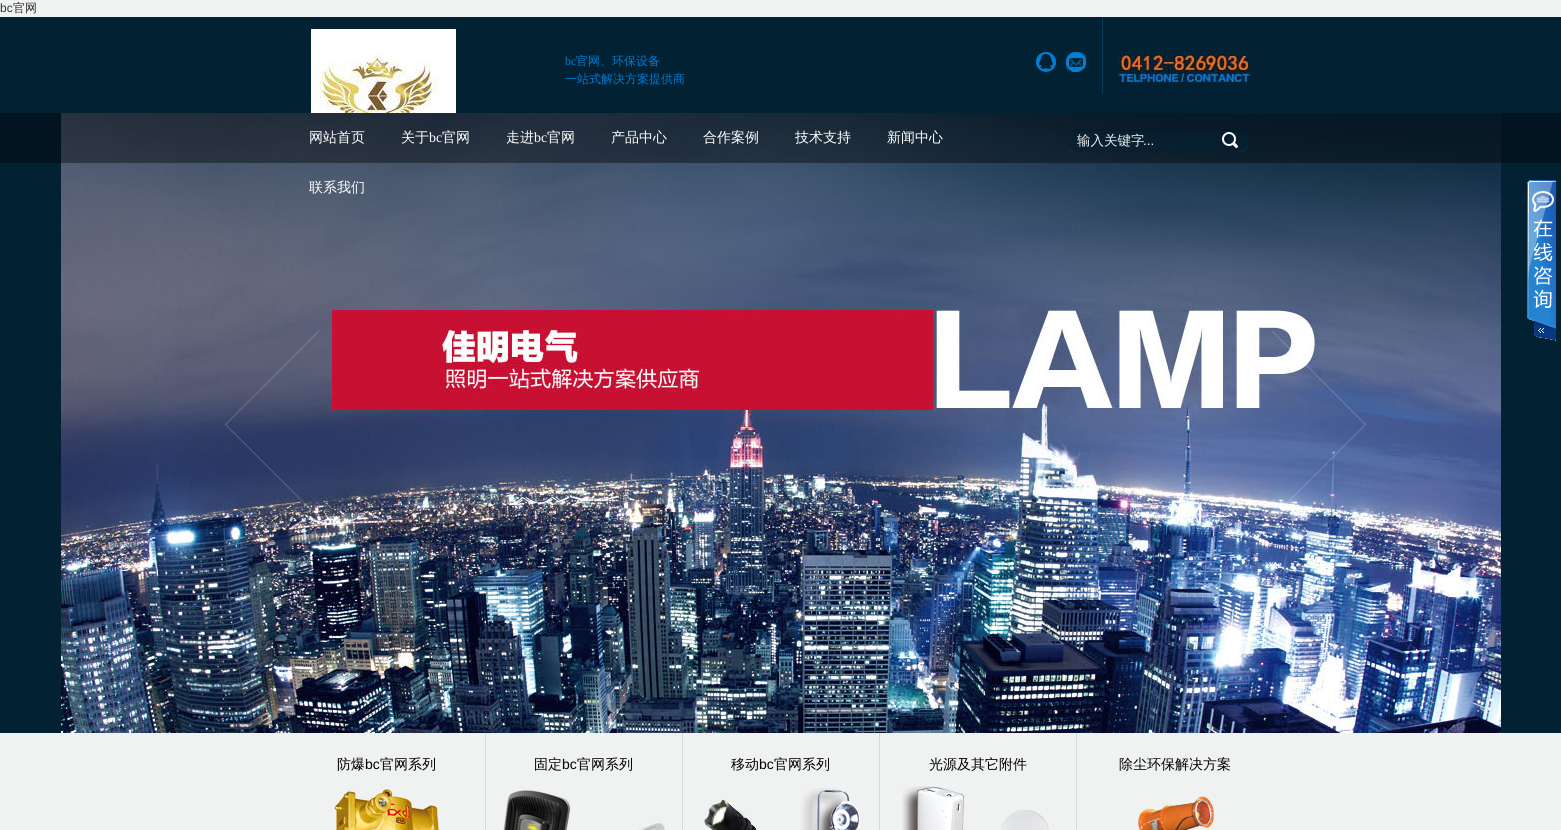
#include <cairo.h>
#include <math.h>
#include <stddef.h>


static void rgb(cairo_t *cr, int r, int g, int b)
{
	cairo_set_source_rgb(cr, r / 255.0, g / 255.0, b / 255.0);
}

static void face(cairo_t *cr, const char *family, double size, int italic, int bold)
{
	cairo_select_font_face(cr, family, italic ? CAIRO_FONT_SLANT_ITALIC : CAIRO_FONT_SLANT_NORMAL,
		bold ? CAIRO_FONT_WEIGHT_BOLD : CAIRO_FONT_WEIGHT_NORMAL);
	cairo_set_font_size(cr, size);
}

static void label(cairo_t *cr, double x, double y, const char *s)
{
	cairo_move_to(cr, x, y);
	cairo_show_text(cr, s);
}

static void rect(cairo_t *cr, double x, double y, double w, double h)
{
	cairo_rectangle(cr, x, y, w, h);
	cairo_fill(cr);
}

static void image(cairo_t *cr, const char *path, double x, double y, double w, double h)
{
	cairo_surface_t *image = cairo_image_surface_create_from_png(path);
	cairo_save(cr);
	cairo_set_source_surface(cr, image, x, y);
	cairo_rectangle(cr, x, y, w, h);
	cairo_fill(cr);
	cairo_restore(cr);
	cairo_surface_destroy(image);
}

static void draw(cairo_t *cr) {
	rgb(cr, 240, 241, 241);
	cairo_paint(cr);
	face(cr, "Liberation Sans", 12, 0, 0);
	rgb(cr, 51, 51, 51);
	label(cr, 0, 12, "bc");
	face(cr, "WenQuanYi Zen Hei Medium", 12, 0, 0);
	label(cr, 13, 12, "官网");
	rgb(cr, 2, 34, 52);
	rect(cr, 0, 17, 1561, 716);
	image(cr, "image0.png", 311, 29, 145, 84);
	face(cr, "Liberation Serif", 12, 0, 0);
	rgb(cr, 3, 121, 204);
	label(cr, 565, 65, "bc");
	face(cr, "WenQuanYi Zen Hei Medium", 12, 0, 0);
	label(cr, 576, 65, "官网、环保设备");
	label(cr, 565, 83, "一站式解决方案提供商");
	image(cr, "image1.png", 1036, 52, 20, 20);
	image(cr, "image2.png", 1066, 52, 20, 20);
	rgb(cr, 3, 61, 86);
	rect(cr, 1102, 17, 1, 77);
	image(cr, "image3.png", 1118, 52, 133, 30);
	image(cr, "image4.png", 61, 113, 1440, 620);
	image(cr, "image5.png", 224, 331, 95, 179);
	image(cr, "image6.png", 1272, 331, 95, 179);
	cairo_set_source_rgba(cr, 0, 0, 0, 0.4);
	rect(cr, 0, 113, 1561, 50);
	face(cr, "WenQuanYi Zen Hei Medium", 14, 0, 0);
	rgb(cr, 255, 255, 255);
	label(cr, 309, 142, "网站首页");
	label(cr, 401, 142, "关于");
	face(cr, "Liberation Serif", 14, 0, 0);
	label(cr, 429, 142, "bc");
	face(cr, "WenQuanYi Zen Hei Medium", 14, 0, 0);
	label(cr, 442, 142, "官网");
	label(cr, 506, 142, "走进");
	face(cr, "Liberation Serif", 14, 0, 0);
	label(cr, 534, 142, "bc");
	face(cr, "WenQuanYi Zen Hei Medium", 14, 0, 0);
	label(cr, 547, 142, "官网");
	label(cr, 611, 142, "产品中心");
	label(cr, 703, 142, "合作案例");
	label(cr, 795, 142, "技术支持");
	label(cr, 887, 142, "新闻中心");
	label(cr, 309, 192, "联系我们");
	image(cr, "image7.png", 1066, 129, 183, 23);
	face(cr, "WenQuanYi Zen Hei Medium", 13.5, 0, 0);
	rgb(cr, 242, 242, 242);
	label(cr, 1077, 145, "输入关键字");
	face(cr, "Liberation Sans", 13.5, 0, 0);
	label(cr, 1143, 145, "...");
	image(cr, "image8.png", 1222, 132, 16, 16);
	image(cr, "image9.png", 1527, 180, 29, 161);
	rgb(cr, 218, 218, 218);
	rect(cr, 485, 733, 1, 97);
	face(cr, "WenQuanYi Zen Hei Medium", 14, 0, 0);
	rgb(cr, 0, 0, 0);
	label(cr, 337, 769, "防爆");
	face(cr, "Liberation Sans", 14, 0, 0);
	label(cr, 365, 769, "bc");
	face(cr, "WenQuanYi Zen Hei Medium", 14, 0, 0);
	label(cr, 380, 769, "官网系列");
	image(cr, "image10.png", 334, 789, 105, 41);
	rgb(cr, 218, 218, 218);
	rect(cr, 682, 733, 1, 97);
	rgb(cr, 0, 0, 0);
	label(cr, 534, 769, "固定");
	face(cr, "Liberation Sans", 14, 0, 0);
	label(cr, 562, 769, "bc");
	face(cr, "WenQuanYi Zen Hei Medium", 14, 0, 0);
	label(cr, 577, 769, "官网系列");
	image(cr, "image11.png", 503, 790, 162, 40);
	rgb(cr, 218, 218, 218);
	rect(cr, 879, 733, 1, 97);
	rgb(cr, 0, 0, 0);
	label(cr, 731, 769, "移动");
	face(cr, "Liberation Sans", 14, 0, 0);
	label(cr, 759, 769, "bc");
	face(cr, "WenQuanYi Zen Hei Medium", 14, 0, 0);
	label(cr, 774, 769, "官网系列");
	image(cr, "image12.png", 704, 788, 156, 42);
	rgb(cr, 218, 218, 218);
	rect(cr, 1076, 733, 1, 97);
	rgb(cr, 0, 0, 0);
	label(cr, 929, 769, "光源及其它附件");
	image(cr, "image13.png", 902, 786, 147, 44);
	label(cr, 1119, 769, "除尘环保解决方案");
	image(cr, "image14.png", 1138, 796, 76, 34);
}

int main(void) {
	cairo_surface_t *surface = cairo_image_surface_create(CAIRO_FORMAT_RGB24, 1561, 830);
	cairo_t *cr = cairo_create(surface);
	cairo_font_options_t *options = cairo_font_options_create();
	cairo_font_options_set_hint_metrics(options, CAIRO_HINT_METRICS_OFF);
	cairo_font_options_set_hint_style(options, CAIRO_HINT_STYLE_NONE);
	cairo_set_font_options(cr, options);
	cairo_set_miter_limit(cr, 4);
	draw(cr);
	cairo_surface_write_to_png(surface, "render.png");
	cairo_font_options_destroy(options);
	cairo_destroy(cr);
	cairo_surface_destroy(surface);
	return 0;
}
